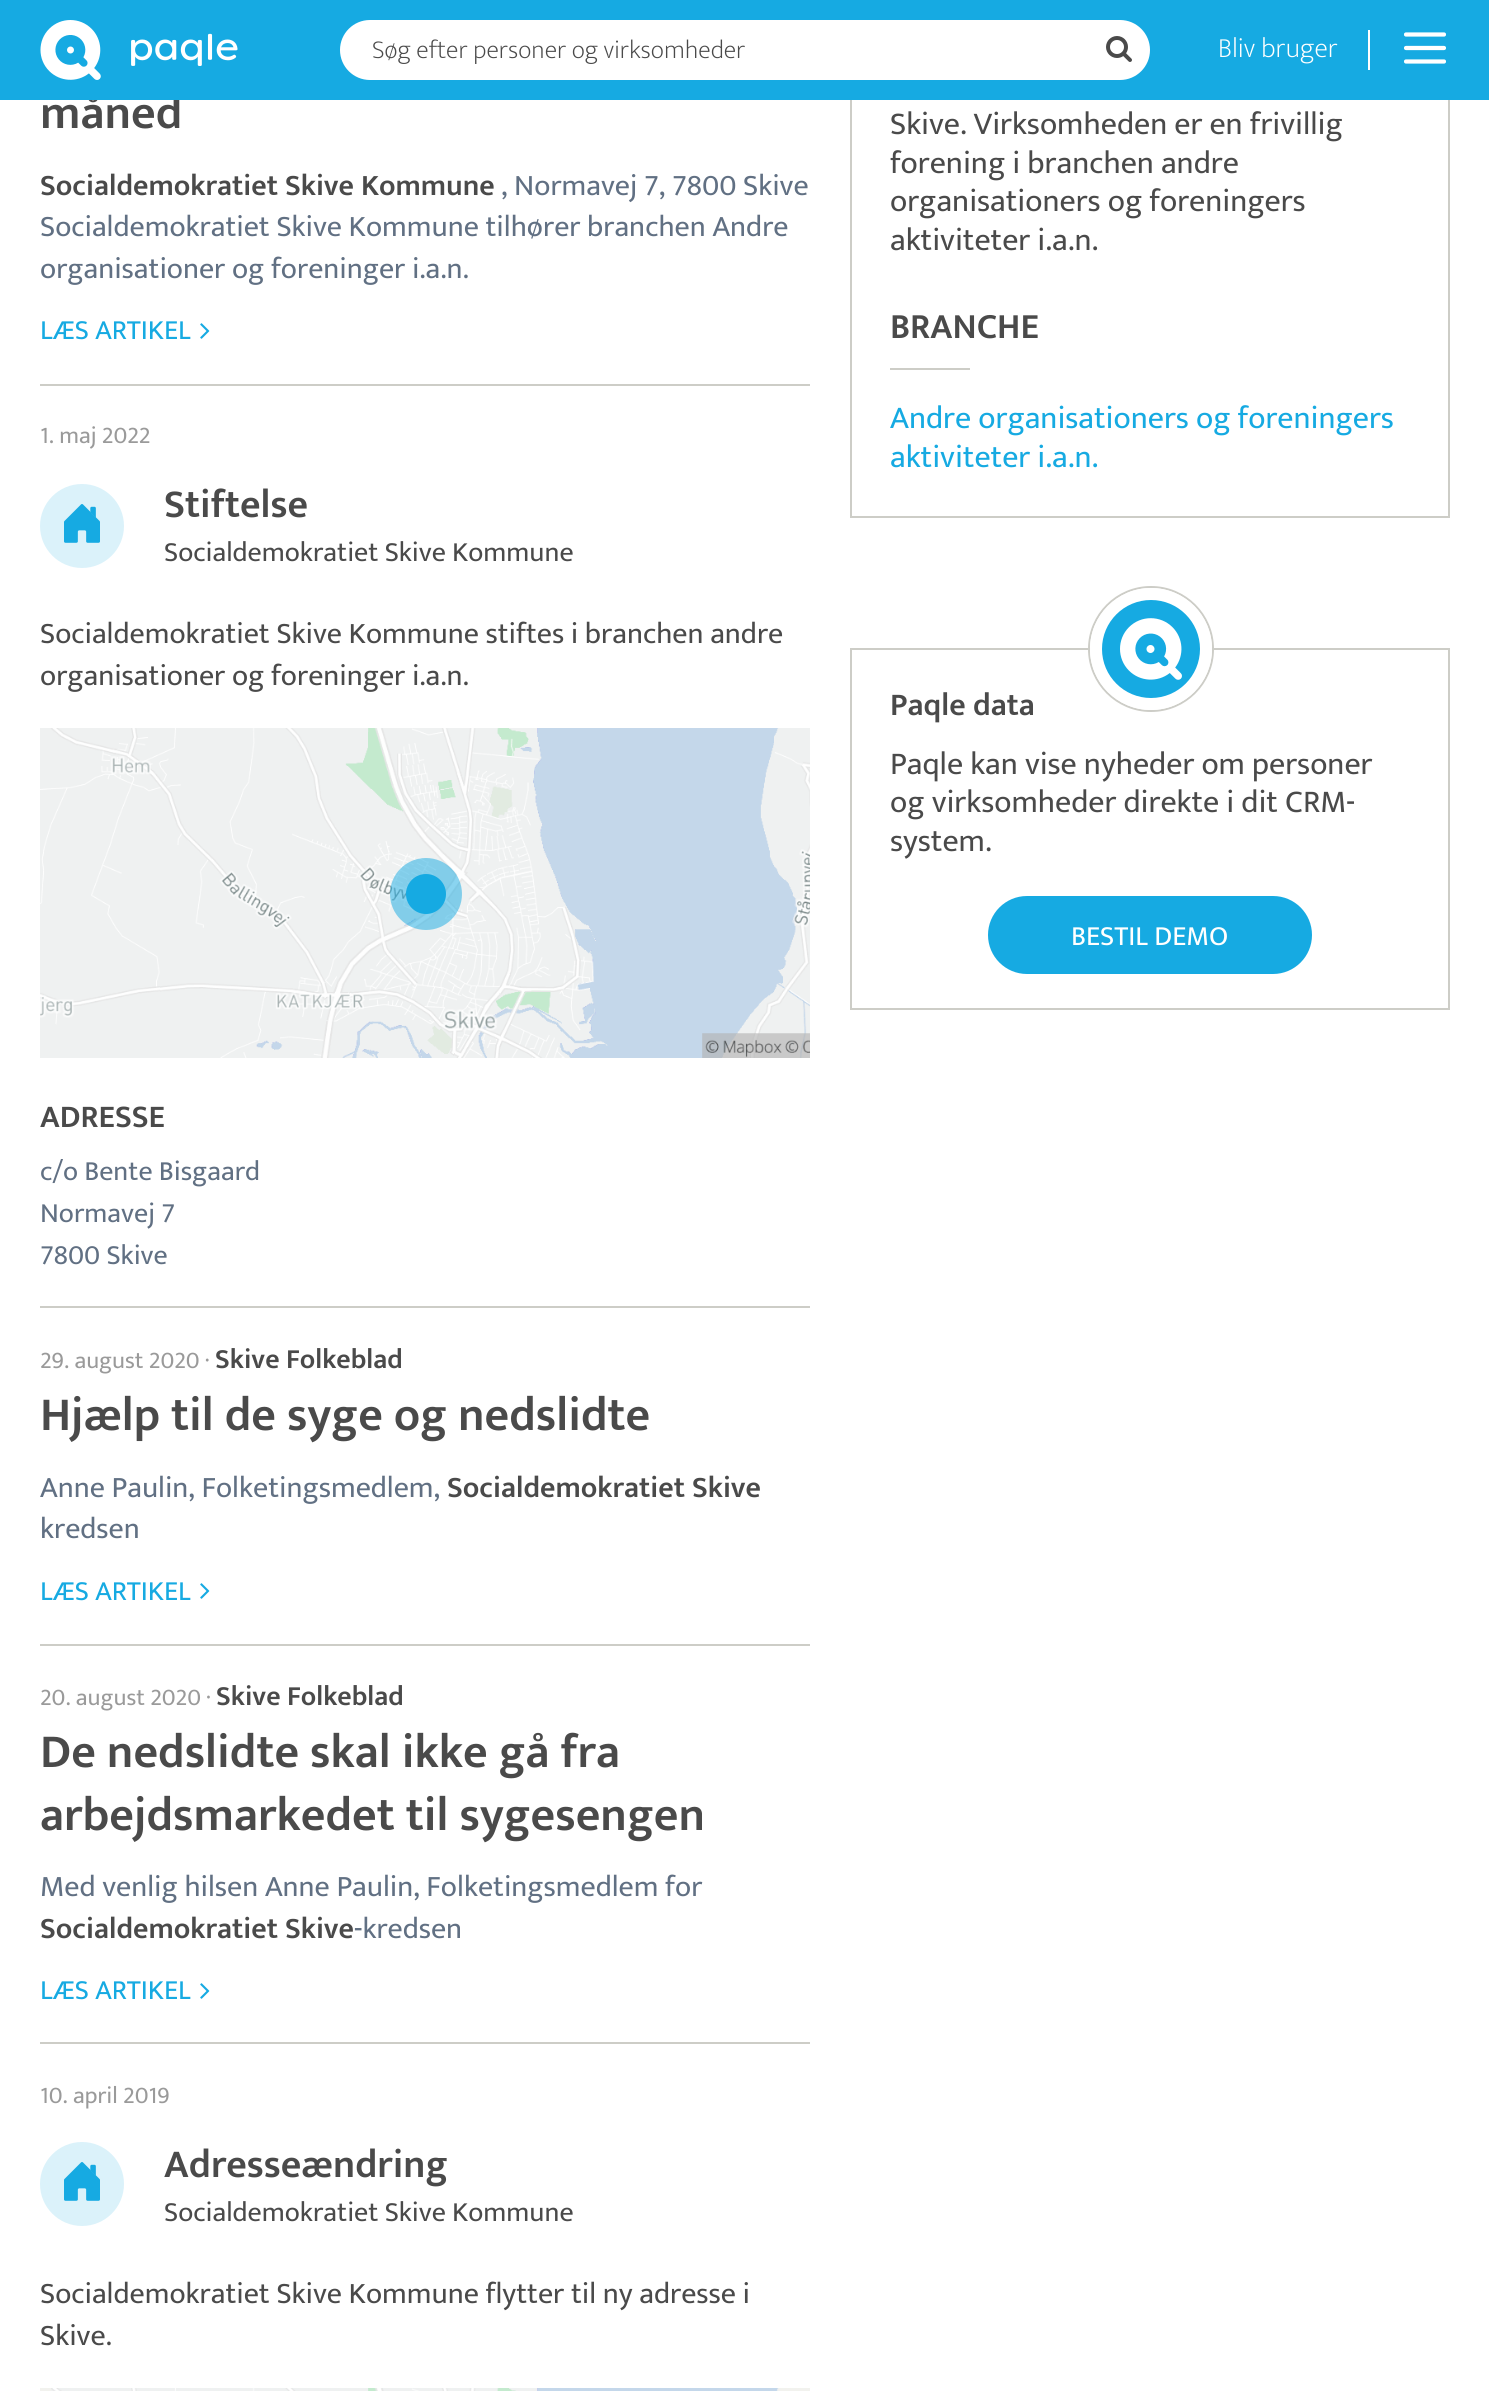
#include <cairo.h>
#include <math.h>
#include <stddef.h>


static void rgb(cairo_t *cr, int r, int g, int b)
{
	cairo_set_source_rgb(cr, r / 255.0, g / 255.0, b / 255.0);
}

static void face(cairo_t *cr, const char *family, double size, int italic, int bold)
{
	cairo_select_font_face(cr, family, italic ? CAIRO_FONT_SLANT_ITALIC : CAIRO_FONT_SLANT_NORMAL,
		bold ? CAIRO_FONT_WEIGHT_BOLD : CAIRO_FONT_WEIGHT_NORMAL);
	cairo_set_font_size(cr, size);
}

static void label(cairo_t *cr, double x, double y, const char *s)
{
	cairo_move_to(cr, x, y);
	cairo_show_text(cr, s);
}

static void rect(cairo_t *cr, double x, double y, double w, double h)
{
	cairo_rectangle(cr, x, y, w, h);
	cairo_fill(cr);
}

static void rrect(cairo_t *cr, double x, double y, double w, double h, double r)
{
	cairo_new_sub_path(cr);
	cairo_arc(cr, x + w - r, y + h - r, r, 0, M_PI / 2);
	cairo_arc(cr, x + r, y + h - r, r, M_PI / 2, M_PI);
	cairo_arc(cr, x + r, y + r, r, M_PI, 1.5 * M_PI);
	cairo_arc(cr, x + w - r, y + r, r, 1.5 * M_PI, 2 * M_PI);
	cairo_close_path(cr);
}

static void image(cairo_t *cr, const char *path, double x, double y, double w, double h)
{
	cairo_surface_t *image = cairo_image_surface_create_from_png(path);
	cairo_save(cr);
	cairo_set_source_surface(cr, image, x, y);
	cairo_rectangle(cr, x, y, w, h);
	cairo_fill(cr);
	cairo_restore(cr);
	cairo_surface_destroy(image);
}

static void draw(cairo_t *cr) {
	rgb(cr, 255, 255, 255);
	cairo_paint(cr);
	face(cr, "Mukta Vaani SemiBold", 48, 0, 0);
	rgb(cr, 74, 74, 74);
	label(cr, 40, 128, "måned");
	cairo_rectangle(cr, 851, -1, 598, 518);
	rgb(cr, 205, 205, 199);
	cairo_stroke(cr);
	rgb(cr, 22, 170, 226);
	rect(cr, 0, 0, 1489, 100);
	image(cr, "image0.png", 40, 20, 198, 60);
	rgb(cr, 255, 255, 255);
	rrect(cr, 340, 20, 810, 60, 30);
	cairo_fill(cr);
	face(cr, "Mukta Vaani Light", 26, 0, 0);
	rgb(cr, 74, 74, 74);
	label(cr, 372, 58, "Søg efter personer og virksomheder");
	image(cr, "image1.png", 1106, 36, 26, 26);
	face(cr, "Mukta Vaani Light", 28, 0, 0);
	rgb(cr, 255, 255, 255);
	label(cr, 1218, 57, "Bliv bruger");
	rect(cr, 1368, 30, 2, 40);
	cairo_save(cr);
	cairo_rectangle(cr, 1404, 32, 42, 32);
	cairo_clip(cr);
	cairo_new_path(cr);
	cairo_move_to(cr, 1406, 48);
	cairo_line_to(cr, 1444, 48);
	cairo_move_to(cr, 1406, 61.5);
	cairo_line_to(cr, 1444, 61.5);
	cairo_move_to(cr, 1406, 34.5);
	cairo_line_to(cr, 1444, 34.5);
	cairo_set_line_width(cr, 4.2);
	cairo_set_line_cap(cr, CAIRO_LINE_CAP_ROUND);
	cairo_stroke(cr);
	cairo_restore(cr);
	face(cr, "Mukta Vaani SemiBold", 30, 0, 0);
	rgb(cr, 74, 74, 74);
	label(cr, 40, 195, "Socialdemokratiet Skive Kommune");
	face(cr, "Mukta Vaani", 30, 0, 0);
	rgb(cr, 97, 112, 131);
	label(cr, 501, 195, ", Normavej 7, 7800 Skive");
	label(cr, 40, 236, "Socialdemokratiet Skive Kommune tilhører branchen Andre");
	label(cr, 40, 278, "organisationer og foreninger i.a.n.");
	face(cr, "Mukta Vaani", 28, 0, 0);
	rgb(cr, 22, 170, 226);
	label(cr, 40, 339, "LÆS ARTIKEL");
	image(cr, "image2.png", 200, 323, 10, 16);
	rgb(cr, 205, 205, 199);
	rect(cr, 40, 384, 770, 2);
	face(cr, "Mukta Vaani", 24, 0, 0);
	rgb(cr, 154, 154, 154);
	label(cr, 40, 443, "1. maj 2022");
	image(cr, "image3.png", 40, 484, 84, 84);
	face(cr, "Mukta Vaani SemiBold", 40, 0, 0);
	rgb(cr, 74, 74, 74);
	label(cr, 164, 517, "Stiftelse");
	face(cr, "Mukta Vaani", 28, 0, 0);
	label(cr, 164, 561, "Socialdemokratiet Skive Kommune");
	face(cr, "Mukta Vaani", 30, 0, 0);
	label(cr, 40, 643, "Socialdemokratiet Skive Kommune stiftes i branchen andre");
	label(cr, 40, 685, "organisationer og foreninger i.a.n.");
	image(cr, "image4.png", 40, 728, 770, 330);
	cairo_set_source_rgba(cr, 0.086, 0.667, 0.886, 0.5);
	cairo_arc(cr, 426, 894, 36, 0, 2 * M_PI);
	cairo_fill(cr);
	rgb(cr, 22, 170, 226);
	cairo_arc(cr, 426, 894, 20, 0, 2 * M_PI);
	cairo_fill(cr);
	face(cr, "Mukta Vaani SemiBold", 32, 0, 0);
	rgb(cr, 74, 74, 74);
	label(cr, 40, 1127, "ADRESSE");
	face(cr, "Mukta Vaani", 28, 0, 0);
	rgb(cr, 97, 112, 131);
	label(cr, 40, 1180, "c/o Bente Bisgaard");
	label(cr, 40, 1222, "Normavej 7");
	label(cr, 40, 1264, "7800 Skive");
	rgb(cr, 205, 205, 199);
	rect(cr, 40, 1306, 770, 2);
	face(cr, "Mukta Vaani", 24, 0, 0);
	rgb(cr, 154, 154, 154);
	label(cr, 40, 1368, "29. august 2020 ·");
	face(cr, "Mukta Vaani SemiBold", 28, 0, 0);
	rgb(cr, 74, 74, 74);
	label(cr, 215, 1368, "Skive Folkeblad");
	face(cr, "Mukta Vaani SemiBold", 48, 0, 0);
	label(cr, 40, 1430, "Hjælp til de syge og nedslidte");
	face(cr, "Mukta Vaani", 30, 0, 0);
	rgb(cr, 97, 112, 131);
	label(cr, 40, 1497, "Anne Paulin, Folketingsmedlem,");
	face(cr, "Mukta Vaani SemiBold", 30, 0, 0);
	rgb(cr, 74, 74, 74);
	label(cr, 447, 1497, "Socialdemokratiet Skive");
	face(cr, "Mukta Vaani", 30, 0, 0);
	rgb(cr, 97, 112, 131);
	label(cr, 40, 1538, "kredsen");
	face(cr, "Mukta Vaani", 28, 0, 0);
	rgb(cr, 22, 170, 226);
	label(cr, 40, 1600, "LÆS ARTIKEL");
	image(cr, "image2.png", 200, 1583, 10, 16);
	rgb(cr, 205, 205, 199);
	rect(cr, 40, 1644, 770, 2);
	face(cr, "Mukta Vaani", 24, 0, 0);
	rgb(cr, 154, 154, 154);
	label(cr, 40, 1705, "20. august 2020 ·");
	face(cr, "Mukta Vaani SemiBold", 28, 0, 0);
	rgb(cr, 74, 74, 74);
	label(cr, 216, 1705, "Skive Folkeblad");
	face(cr, "Mukta Vaani SemiBold", 48, 0, 0);
	label(cr, 40, 1767, "De nedslidte skal ikke gå fra");
	label(cr, 40, 1830, "arbejdsmarkedet til sygesengen");
	face(cr, "Mukta Vaani", 30, 0, 0);
	rgb(cr, 97, 112, 131);
	label(cr, 40, 1896, "Med venlig hilsen Anne Paulin, Folketingsmedlem for");
	face(cr, "Mukta Vaani SemiBold", 30, 0, 0);
	rgb(cr, 74, 74, 74);
	label(cr, 40, 1938, "Socialdemokratiet Skive");
	face(cr, "Mukta Vaani", 30, 0, 0);
	rgb(cr, 97, 112, 131);
	label(cr, 354, 1938, "-kredsen");
	face(cr, "Mukta Vaani", 28, 0, 0);
	rgb(cr, 22, 170, 226);
	label(cr, 40, 1999, "LÆS ARTIKEL");
	image(cr, "image2.png", 200, 1983, 10, 16);
	rgb(cr, 205, 205, 199);
	rect(cr, 40, 2042, 770, 2);
	face(cr, "Mukta Vaani", 24, 0, 0);
	rgb(cr, 154, 154, 154);
	label(cr, 40, 2103, "10. april 2019");
	image(cr, "image3.png", 40, 2142, 84, 84);
	face(cr, "Mukta Vaani SemiBold", 40, 0, 0);
	rgb(cr, 74, 74, 74);
	label(cr, 164, 2177, "Adresseændring");
	face(cr, "Mukta Vaani", 28, 0, 0);
	label(cr, 164, 2221, "Socialdemokratiet Skive Kommune");
	face(cr, "Mukta Vaani", 30, 0, 0);
	label(cr, 40, 2303, "Socialdemokratiet Skive Kommune flytter til ny adresse i");
	label(cr, 40, 2345, "Skive.");
	rgb(cr, 242, 242, 238);
	rect(cr, 40, 2388, 770, 3);
	image(cr, "image5.png", 51, 2388, 728, 3);
	face(cr, "Mukta Vaani", 32, 0, 0);
	rgb(cr, 74, 74, 74);
	label(cr, 890, 134, "Skive. Virksomheden er en frivillig");
	label(cr, 890, 173, "forening i branchen andre");
	label(cr, 890, 211, "organisationers og foreningers");
	label(cr, 890, 250, "aktiviteter i.a.n.");
	face(cr, "Mukta Vaani SemiBold", 36, 0, 0);
	label(cr, 890, 338, "BRANCHE");
	rgb(cr, 205, 205, 199);
	rect(cr, 890, 368, 80, 2);
	face(cr, "Mukta Vaani", 32, 0, 0);
	rgb(cr, 22, 170, 226);
	label(cr, 890, 428, "Andre organisationers og foreningers");
	label(cr, 890, 467, "aktiviteter i.a.n.");
	cairo_rectangle(cr, 851, 649, 598, 360);
	rgb(cr, 205, 205, 199);
	cairo_stroke(cr);
	face(cr, "Mukta Vaani SemiBold", 32, 0, 0);
	rgb(cr, 74, 74, 74);
	label(cr, 890, 715, "Paqle data");
	cairo_new_path(cr);
	cairo_arc(cr, 1151, 649, 62, 0, 2 * M_PI);
	rgb(cr, 205, 205, 199);
	cairo_stroke(cr);
	rgb(cr, 255, 255, 255);
	cairo_arc(cr, 1151, 649, 61, 0, 2 * M_PI);
	cairo_fill(cr);
	rgb(cr, 22, 170, 226);
	cairo_arc(cr, 1151, 649, 49, 0, 2 * M_PI);
	cairo_fill(cr);
	image(cr, "image6.png", 1120, 618, 62, 62);
	face(cr, "Mukta Vaani", 32, 0, 0);
	rgb(cr, 74, 74, 74);
	label(cr, 890, 774, "Paqle kan vise nyheder om personer");
	label(cr, 890, 812, "og virksomheder direkte i dit CRM-");
	label(cr, 890, 851, "system.");
	rgb(cr, 22, 170, 226);
	rrect(cr, 988, 896, 324, 78, 39);
	cairo_fill(cr);
	face(cr, "Mukta Vaani", 28, 0, 0);
	rgb(cr, 255, 255, 255);
	label(cr, 1071, 945, "BESTIL DEMO");
}

int main(void) {
	cairo_surface_t *surface = cairo_image_surface_create(CAIRO_FORMAT_RGB24, 1489, 2391);
	cairo_t *cr = cairo_create(surface);
	cairo_font_options_t *options = cairo_font_options_create();
	cairo_font_options_set_hint_metrics(options, CAIRO_HINT_METRICS_OFF);
	cairo_font_options_set_hint_style(options, CAIRO_HINT_STYLE_NONE);
	cairo_set_font_options(cr, options);
	cairo_set_miter_limit(cr, 4);
	draw(cr);
	cairo_surface_write_to_png(surface, "render.png");
	cairo_font_options_destroy(options);
	cairo_destroy(cr);
	cairo_surface_destroy(surface);
	return 0;
}
